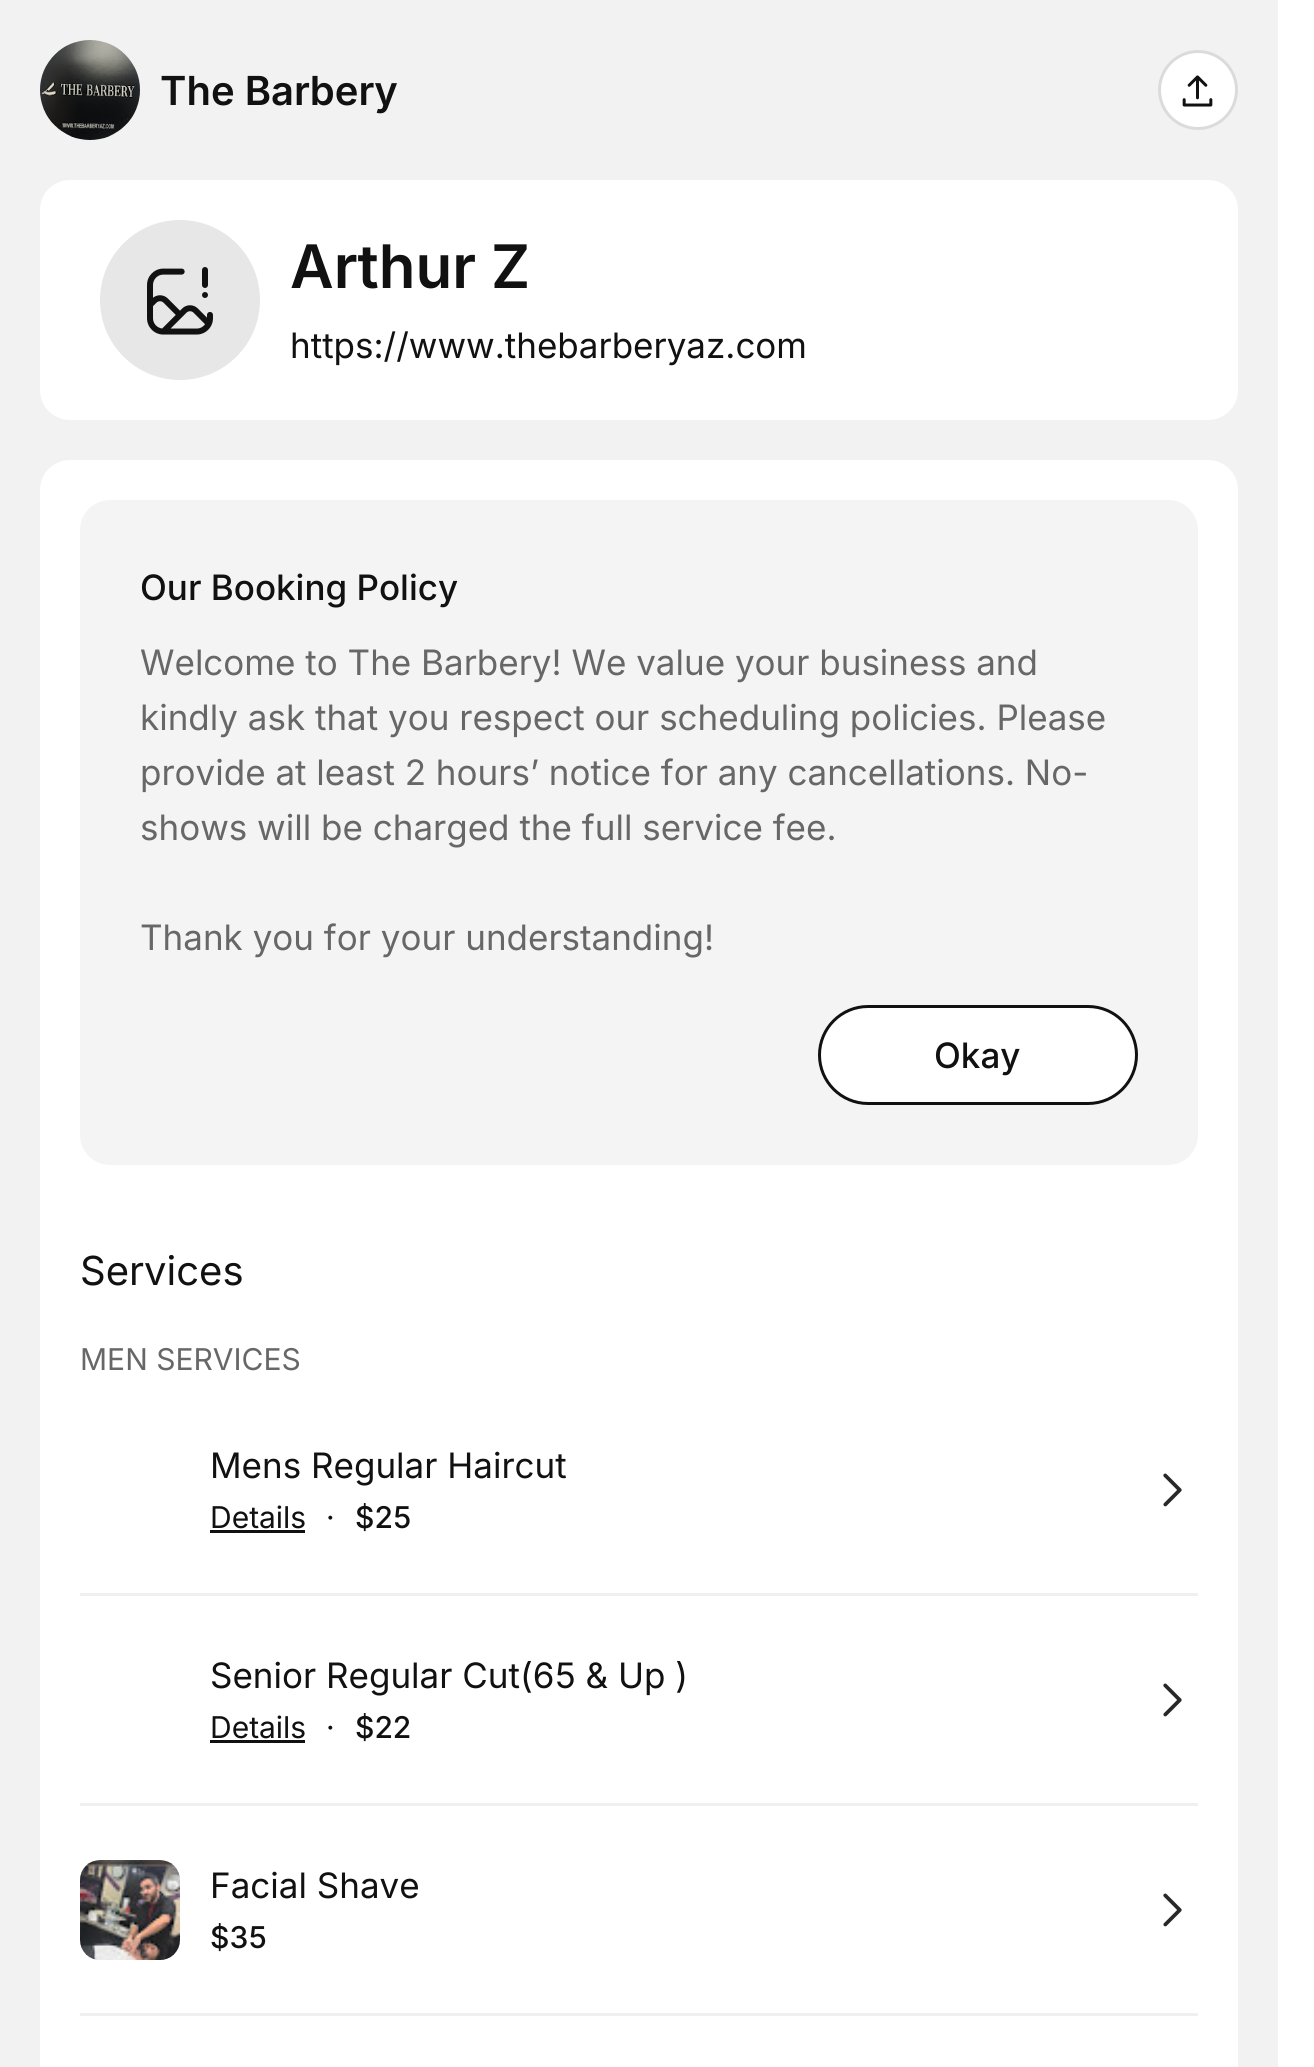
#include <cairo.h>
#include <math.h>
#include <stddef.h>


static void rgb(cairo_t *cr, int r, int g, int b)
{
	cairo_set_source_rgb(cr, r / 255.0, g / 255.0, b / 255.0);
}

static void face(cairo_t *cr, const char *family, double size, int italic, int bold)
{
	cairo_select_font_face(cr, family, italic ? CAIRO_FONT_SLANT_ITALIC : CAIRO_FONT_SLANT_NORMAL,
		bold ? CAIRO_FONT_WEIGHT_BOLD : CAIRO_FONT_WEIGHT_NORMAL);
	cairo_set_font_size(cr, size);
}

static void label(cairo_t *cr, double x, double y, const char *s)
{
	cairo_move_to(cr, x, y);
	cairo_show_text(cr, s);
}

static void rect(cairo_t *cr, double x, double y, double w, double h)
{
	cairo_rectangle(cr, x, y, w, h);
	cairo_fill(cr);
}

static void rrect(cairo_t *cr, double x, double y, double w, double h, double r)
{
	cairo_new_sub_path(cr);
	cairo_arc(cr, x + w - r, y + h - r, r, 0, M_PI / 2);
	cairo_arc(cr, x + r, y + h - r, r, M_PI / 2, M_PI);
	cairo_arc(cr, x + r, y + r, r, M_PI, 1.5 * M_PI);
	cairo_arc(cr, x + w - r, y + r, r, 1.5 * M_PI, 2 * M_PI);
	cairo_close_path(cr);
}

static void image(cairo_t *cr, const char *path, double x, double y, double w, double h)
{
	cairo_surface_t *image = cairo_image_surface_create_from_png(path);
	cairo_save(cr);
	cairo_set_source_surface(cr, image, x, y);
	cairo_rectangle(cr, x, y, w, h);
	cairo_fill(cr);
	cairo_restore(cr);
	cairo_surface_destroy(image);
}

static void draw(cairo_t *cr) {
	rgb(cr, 255, 255, 255);
	cairo_paint(cr);
	rgb(cr, 242, 242, 242);
	rect(cr, 0, 0, 1278, 2067);
	image(cr, "image0.png", 40, 40, 100, 100);
	face(cr, "Inter SemiBold", 40, 0, 0);
	rgb(cr, 17, 17, 17);
	label(cr, 160, 105, "The Barbery");
	rgb(cr, 255, 255, 255);
	cairo_new_path(cr);
	cairo_arc(cr, 1198, 90, 38.5, 0, 2 * M_PI);
	cairo_fill_preserve(cr);
	rgb(cr, 219, 219, 219);
	cairo_set_line_width(cr, 3);
	cairo_stroke(cr);
	image(cr, "image1.png", 1182, 75, 31, 32);
	rgb(cr, 255, 255, 255);
	rrect(cr, 40, 180, 1198, 240, 30);
	cairo_fill(cr);
	rgb(cr, 231, 231, 231);
	cairo_arc(cr, 180, 300, 80, 0, 2 * M_PI);
	cairo_fill(cr);
	image(cr, "image2.png", 147, 267, 66, 68);
	face(cr, "Inter SemiBold", 60, 0, 0);
	rgb(cr, 17, 17, 17);
	label(cr, 290, 288, "Arthur Z");
	face(cr, "Inter", 35, 0, 0);
	label(cr, 290, 358, "https://www.thebarberyaz.com");
	rgb(cr, 255, 255, 255);
	rrect(cr, 40, 460, 1198, 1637, 30);
	cairo_fill(cr);
	rgb(cr, 244, 244, 244);
	rrect(cr, 80, 500, 1118, 665, 30);
	cairo_fill(cr);
	face(cr, "Inter Medium", 35, 0, 0);
	rgb(cr, 17, 17, 17);
	label(cr, 140, 600, "Our Booking Policy");
	face(cr, "Inter", 35, 0, 0);
	rgb(cr, 103, 103, 103);
	label(cr, 140, 675, "Welcome to The Barbery! We value your business and");
	label(cr, 140, 730, "kindly ask that you respect our scheduling policies. Please");
	label(cr, 140, 785, "provide at least 2 hours’ notice for any cancellations. No-");
	label(cr, 140, 840, "shows will be charged the full service fee.");
	label(cr, 140, 950, "Thank you for your understanding!");
	rgb(cr, 255, 255, 255);
	rrect(cr, 819.5, 1006.5, 317, 97, 48.5);
	cairo_fill_preserve(cr);
	rgb(cr, 17, 17, 17);
	cairo_stroke(cr);
	face(cr, "Inter Medium", 35, 0, 0);
	label(cr, 934, 1068, "Okay");
	face(cr, "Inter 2", 40, 0, 0);
	label(cr, 80, 1285, "Services");
	face(cr, "Inter", 30, 0, 0);
	rgb(cr, 103, 103, 103);
	label(cr, 80, 1370, "MEN SERVICES");
	rgb(cr, 240, 240, 240);
	rect(cr, 80, 1593, 1118, 3);
	face(cr, "Inter", 35, 0, 0);
	rgb(cr, 17, 17, 17);
	label(cr, 210, 1478, "Mens Regular Haircut");
	face(cr, "Inter", 30, 0, 0);
	label(cr, 210, 1528, "Details");
	rect(cr, 210, 1530, 95, 3);
	label(cr, 326, 1528, "·");
	face(cr, "Inter Medium", 30, 0, 0);
	label(cr, 355, 1528, "$25");
	image(cr, "image3.png", 1163, 1473, 19, 34);
	rgb(cr, 240, 240, 240);
	rect(cr, 80, 1803, 1118, 3);
	face(cr, "Inter", 35, 0, 0);
	rgb(cr, 17, 17, 17);
	label(cr, 210, 1688, "Senior Regular Cut(65 & Up )");
	face(cr, "Inter", 30, 0, 0);
	label(cr, 210, 1738, "Details");
	rect(cr, 210, 1740, 95, 3);
	label(cr, 326, 1738, "·");
	face(cr, "Inter Medium", 30, 0, 0);
	label(cr, 355, 1738, "$22");
	image(cr, "image3.png", 1163, 1683, 19, 34);
	rgb(cr, 240, 240, 240);
	rect(cr, 80, 2013, 1118, 3);
	image(cr, "image4.png", 80, 1860, 100, 100);
	face(cr, "Inter", 35, 0, 0);
	rgb(cr, 17, 17, 17);
	label(cr, 210, 1898, "Facial Shave");
	face(cr, "Inter Medium", 30, 0, 0);
	label(cr, 210, 1948, "$35");
	image(cr, "image3.png", 1163, 1893, 19, 34);
}

int main(void) {
	cairo_surface_t *surface = cairo_image_surface_create(CAIRO_FORMAT_RGB24, 1314, 2067);
	cairo_t *cr = cairo_create(surface);
	cairo_font_options_t *options = cairo_font_options_create();
	cairo_font_options_set_hint_metrics(options, CAIRO_HINT_METRICS_OFF);
	cairo_font_options_set_hint_style(options, CAIRO_HINT_STYLE_NONE);
	cairo_set_font_options(cr, options);
	cairo_set_miter_limit(cr, 4);
	draw(cr);
	cairo_surface_write_to_png(surface, "render.png");
	cairo_font_options_destroy(options);
	cairo_destroy(cr);
	cairo_surface_destroy(surface);
	return 0;
}
